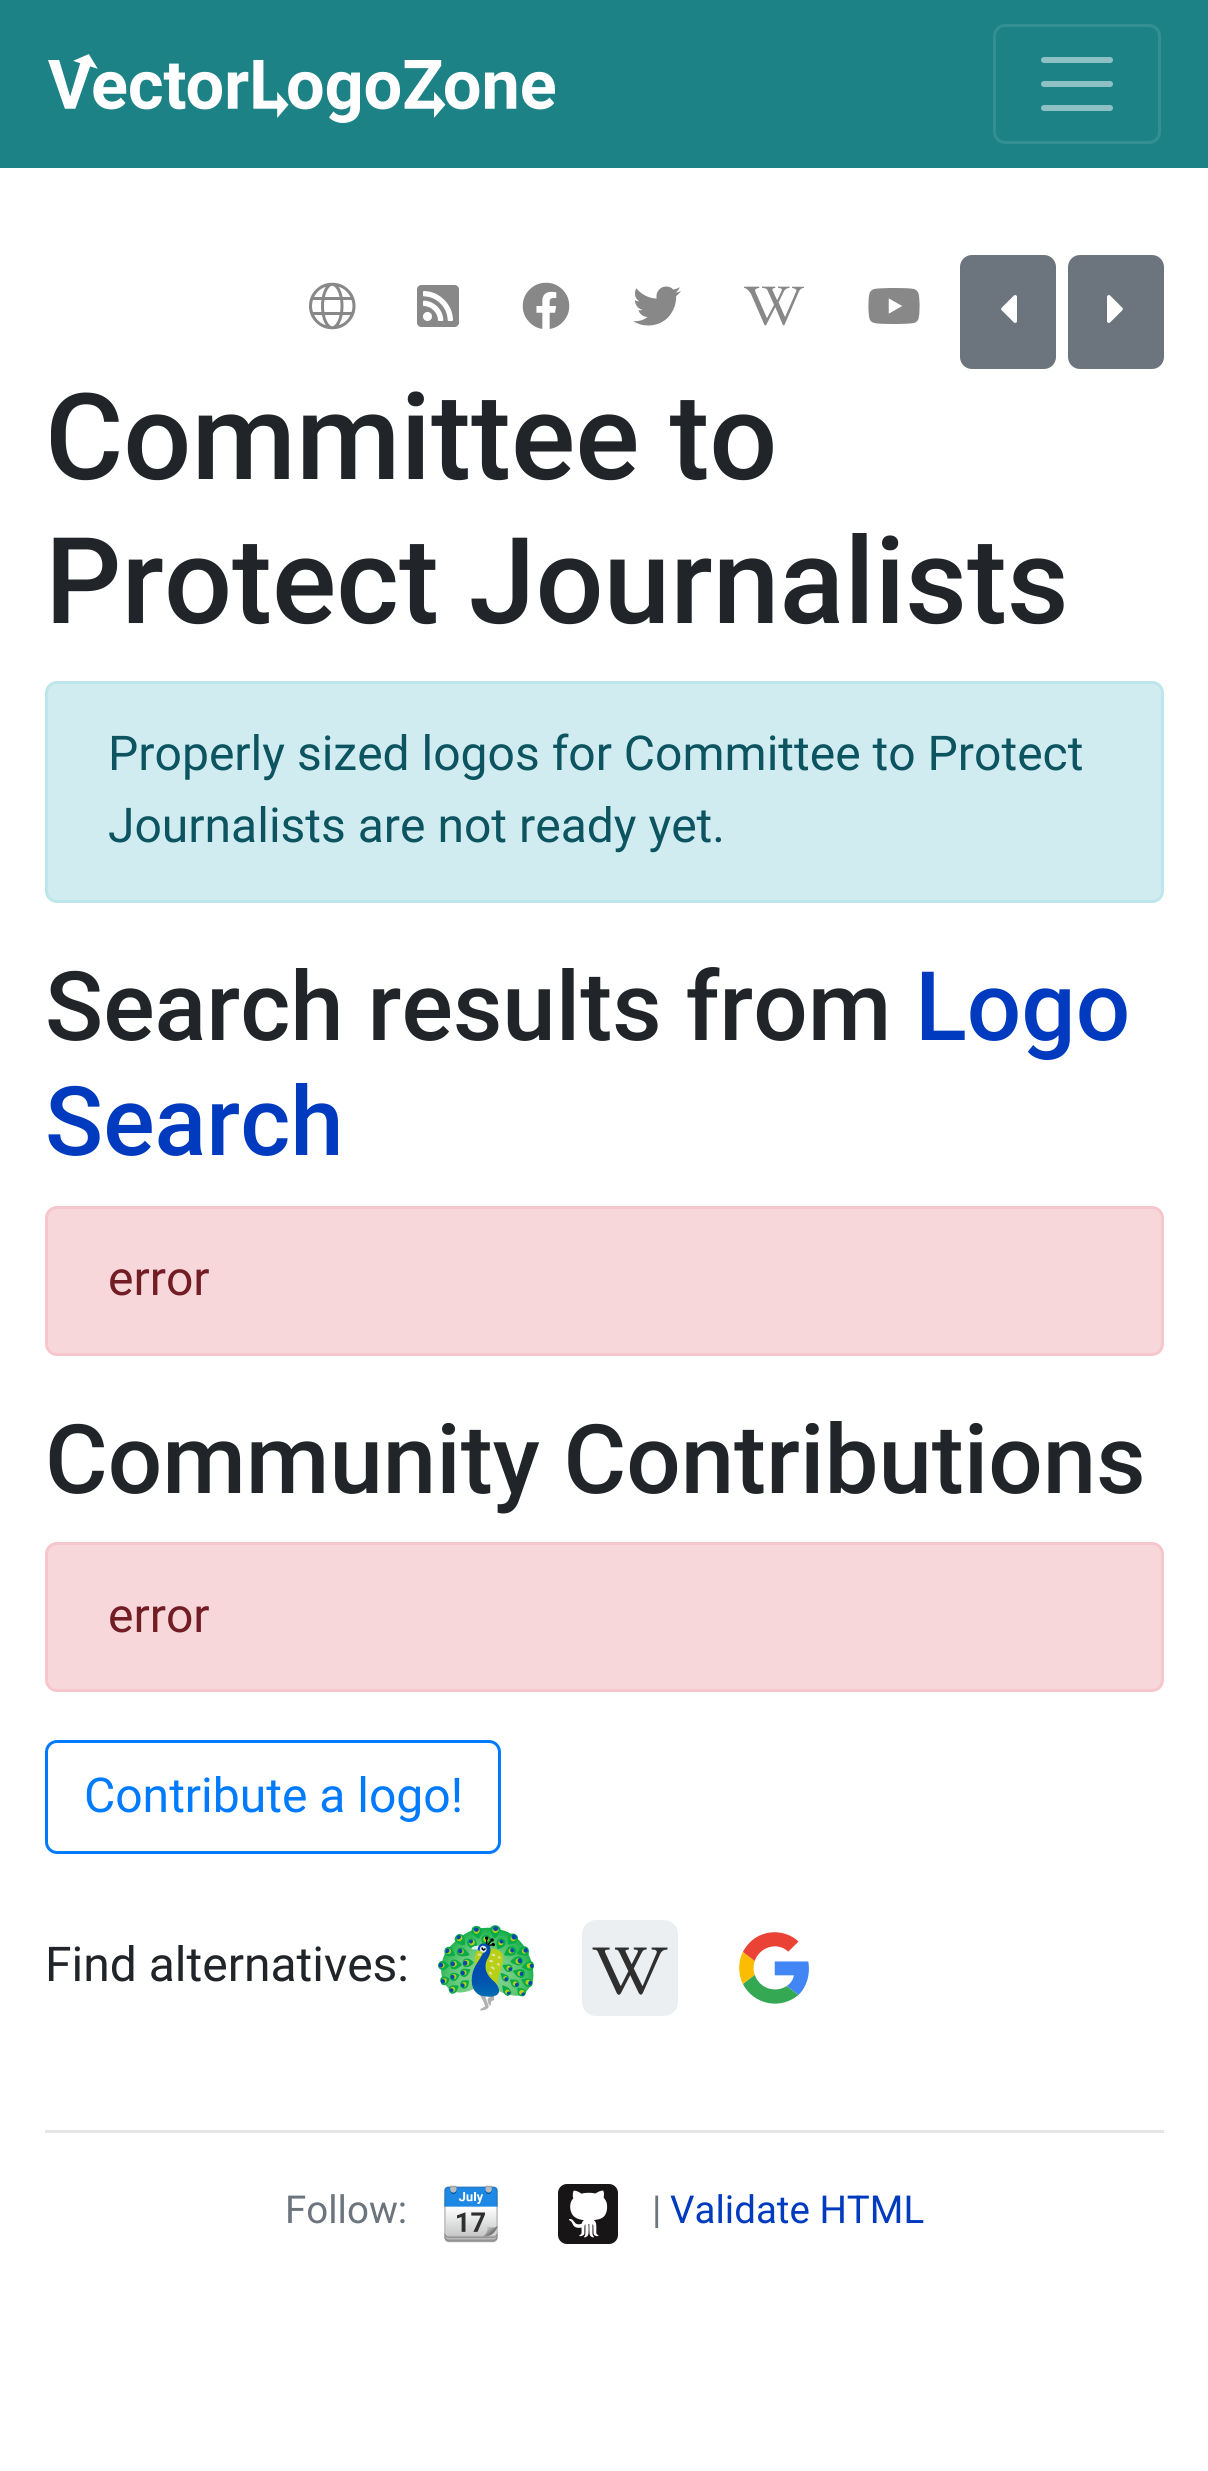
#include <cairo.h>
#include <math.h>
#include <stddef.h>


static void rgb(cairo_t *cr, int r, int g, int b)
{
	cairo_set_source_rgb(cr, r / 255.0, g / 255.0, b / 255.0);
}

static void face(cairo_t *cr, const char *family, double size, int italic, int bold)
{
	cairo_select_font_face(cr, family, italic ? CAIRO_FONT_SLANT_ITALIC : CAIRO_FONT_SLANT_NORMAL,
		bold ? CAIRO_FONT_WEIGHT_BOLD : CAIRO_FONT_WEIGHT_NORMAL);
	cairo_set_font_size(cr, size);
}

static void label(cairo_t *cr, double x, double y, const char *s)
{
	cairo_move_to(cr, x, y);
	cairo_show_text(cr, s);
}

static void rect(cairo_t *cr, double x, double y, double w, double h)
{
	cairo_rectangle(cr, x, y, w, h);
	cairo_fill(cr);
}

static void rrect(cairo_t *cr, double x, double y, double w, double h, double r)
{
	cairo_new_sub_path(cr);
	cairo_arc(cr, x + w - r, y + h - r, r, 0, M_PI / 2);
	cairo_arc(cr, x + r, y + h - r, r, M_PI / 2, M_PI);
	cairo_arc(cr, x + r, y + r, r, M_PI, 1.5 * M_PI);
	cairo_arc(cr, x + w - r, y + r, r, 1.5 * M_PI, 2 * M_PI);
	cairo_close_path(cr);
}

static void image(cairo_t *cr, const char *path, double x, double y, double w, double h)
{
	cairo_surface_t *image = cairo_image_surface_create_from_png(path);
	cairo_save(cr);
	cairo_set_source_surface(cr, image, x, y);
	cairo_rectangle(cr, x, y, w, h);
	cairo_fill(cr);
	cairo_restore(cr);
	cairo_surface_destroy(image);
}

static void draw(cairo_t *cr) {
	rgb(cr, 255, 255, 255);
	cairo_paint(cr);
	rgb(cr, 29, 130, 134);
	rect(cr, 0, 0, 1208, 168);
	image(cr, "image0.png", 48, 54, 507, 69);
	rrect(cr, 994.5, 25.5, 165, 117, 10.5);
	rgb(cr, 52, 143, 146);
	cairo_set_line_width(cr, 3);
	cairo_stroke(cr);
	cairo_new_path(cr);
	cairo_move_to(cr, 1044, 60);
	cairo_line_to(cr, 1110, 60);
	cairo_move_to(cr, 1044, 84);
	cairo_line_to(cr, 1110, 84);
	cairo_move_to(cr, 1044, 108);
	cairo_line_to(cr, 1110, 108);
	rgb(cr, 142, 193, 195);
	cairo_set_line_width(cr, 6);
	cairo_set_line_cap(cr, CAIRO_LINE_CAP_ROUND);
	cairo_stroke(cr);
	image(cr, "image1.png", 309, 282, 47, 48);
	image(cr, "image2.png", 417, 285, 42, 42);
	image(cr, "image3.png", 522, 282, 48, 47);
	image(cr, "image4.png", 633, 286, 48, 40);
	image(cr, "image5.png", 744, 286, 61, 40);
	image(cr, "image6.png", 868, 288, 52, 36);
	rgb(cr, 108, 117, 125);
	rrect(cr, 961.5, 256.5, 93, 111, 10.5);
	cairo_fill_preserve(cr);
	cairo_set_line_width(cr, 3);
	cairo_set_line_cap(cr, CAIRO_LINE_CAP_BUTT);
	cairo_stroke(cr);
	image(cr, "image7.png", 1001, 295, 16, 28);
	rrect(cr, 1069.5, 256.5, 93, 111, 10.5);
	cairo_fill_preserve(cr);
	cairo_stroke(cr);
	image(cr, "image8.png", 1107, 295, 16, 28);
	face(cr, "Roboto Medium", 120, 0, 0);
	rgb(cr, 33, 37, 41);
	label(cr, 45, 479, "Committee to");
	label(cr, 45, 623, "Protect Journalists");
	rgb(cr, 209, 236, 241);
	rrect(cr, 46.5, 682.5, 1116, 219, 10.5);
	cairo_fill_preserve(cr);
	rgb(cr, 190, 229, 235);
	cairo_stroke(cr);
	face(cr, "Roboto", 48, 0, 0);
	rgb(cr, 12, 84, 96);
	label(cr, 108, 770, "Properly sized logos for Committee to Protect");
	label(cr, 108, 842, "Journalists are not ready yet.");
	face(cr, "Roboto Medium", 96, 0, 0);
	rgb(cr, 33, 37, 41);
	label(cr, 45, 1040, "Search results from");
	rgb(cr, 0, 59, 191);
	label(cr, 915, 1040, "Logo");
	label(cr, 45, 1155, "Search");
	rgb(cr, 248, 215, 218);
	rrect(cr, 46.5, 1207.5, 1116, 147, 10.5);
	cairo_fill_preserve(cr);
	rgb(cr, 245, 198, 203);
	cairo_stroke(cr);
	face(cr, "Roboto", 48, 0, 0);
	rgb(cr, 114, 28, 36);
	label(cr, 108, 1295, "error");
	face(cr, "Roboto Medium", 96, 0, 0);
	rgb(cr, 33, 37, 41);
	label(cr, 45, 1493, "Community Contributions");
	rgb(cr, 248, 215, 218);
	rrect(cr, 46.5, 1543.5, 1116, 147, 10.5);
	cairo_fill_preserve(cr);
	rgb(cr, 245, 198, 203);
	cairo_stroke(cr);
	face(cr, "Roboto", 48, 0, 0);
	rgb(cr, 114, 28, 36);
	label(cr, 108, 1632, "error");
	rrect(cr, 46.5, 1741.5, 453, 111, 10.5);
	rgb(cr, 0, 123, 255);
	cairo_stroke(cr);
	label(cr, 84, 1812, "Contribute a logo!");
	rgb(cr, 33, 37, 41);
	label(cr, 45, 1981, "Find alternatives:");
	image(cr, "image9.png", 438, 1925, 96, 86);
	image(cr, "image10.png", 582, 1920, 96, 96);
	image(cr, "image11.png", 739, 1932, 70, 72);
	rgb(cr, 230, 230, 230);
	rect(cr, 45, 2130, 1119, 3);
	face(cr, "Roboto", 38.5, 0, 0);
	rgb(cr, 108, 117, 125);
	label(cr, 285, 2223, "Follow:");
	image(cr, "image12.png", 444, 2185, 54, 58);
	image(cr, "image13.png", 558, 2184, 60, 60);
	label(cr, 652, 2223, "|");
	rgb(cr, 0, 59, 191);
	label(cr, 670, 2223, "Validate HTML");
}

int main(void) {
	cairo_surface_t *surface = cairo_image_surface_create(CAIRO_FORMAT_RGB24, 1208, 2471);
	cairo_t *cr = cairo_create(surface);
	cairo_font_options_t *options = cairo_font_options_create();
	cairo_font_options_set_hint_metrics(options, CAIRO_HINT_METRICS_OFF);
	cairo_font_options_set_hint_style(options, CAIRO_HINT_STYLE_NONE);
	cairo_set_font_options(cr, options);
	cairo_set_miter_limit(cr, 4);
	draw(cr);
	cairo_surface_write_to_png(surface, "render.png");
	cairo_font_options_destroy(options);
	cairo_destroy(cr);
	cairo_surface_destroy(surface);
	return 0;
}
